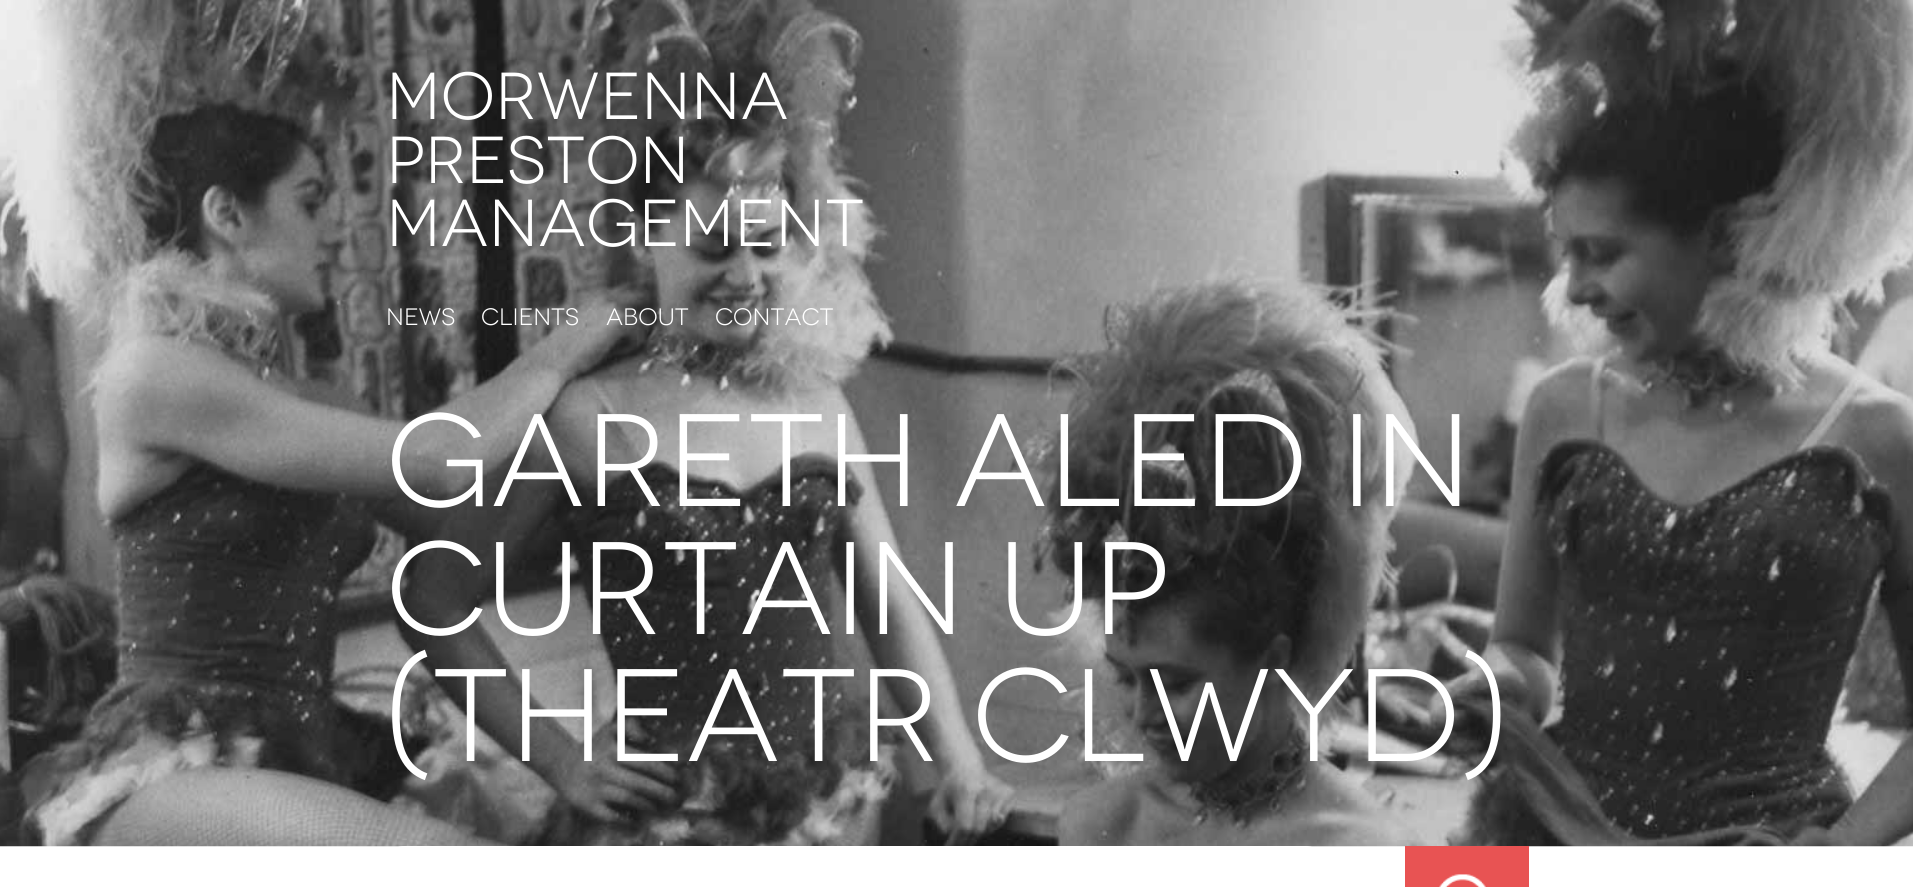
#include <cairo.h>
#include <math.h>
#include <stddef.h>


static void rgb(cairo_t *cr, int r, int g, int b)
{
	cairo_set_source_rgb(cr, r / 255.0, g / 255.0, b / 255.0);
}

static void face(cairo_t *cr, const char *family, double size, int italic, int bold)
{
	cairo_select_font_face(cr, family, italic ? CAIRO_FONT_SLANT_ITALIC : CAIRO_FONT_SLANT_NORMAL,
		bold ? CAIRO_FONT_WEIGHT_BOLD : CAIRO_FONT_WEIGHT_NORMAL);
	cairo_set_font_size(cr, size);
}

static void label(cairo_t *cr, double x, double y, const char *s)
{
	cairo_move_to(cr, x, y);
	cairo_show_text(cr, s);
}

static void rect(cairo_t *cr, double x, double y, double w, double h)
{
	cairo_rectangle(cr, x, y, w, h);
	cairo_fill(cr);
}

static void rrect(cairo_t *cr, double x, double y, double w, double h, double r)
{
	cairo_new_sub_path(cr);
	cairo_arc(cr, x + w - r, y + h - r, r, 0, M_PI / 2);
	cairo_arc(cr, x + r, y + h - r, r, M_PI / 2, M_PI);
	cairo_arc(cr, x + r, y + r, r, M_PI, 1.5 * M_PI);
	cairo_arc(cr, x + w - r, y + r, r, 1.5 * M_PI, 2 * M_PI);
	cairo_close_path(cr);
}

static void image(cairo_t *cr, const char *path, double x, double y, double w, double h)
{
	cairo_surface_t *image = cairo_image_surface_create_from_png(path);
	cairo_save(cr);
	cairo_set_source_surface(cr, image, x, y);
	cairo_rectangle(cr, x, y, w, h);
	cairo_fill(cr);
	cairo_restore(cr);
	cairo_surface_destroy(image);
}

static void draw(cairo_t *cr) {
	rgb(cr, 255, 255, 255);
	cairo_paint(cr);
	image(cr, "image0.png", 0, 0, 1913, 847);
	face(cr, "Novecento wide", 66.25, 0, 0);
	rgb(cr, 255, 255, 255);
	label(cr, 386, 119, "Morwenna");
	label(cr, 386, 183, "Preston");
	label(cr, 386, 246, "Management");
	face(cr, "Novecento wide", 23.75, 0, 0);
	label(cr, 386, 325, "News");
	label(cr, 481, 325, "Clients");
	label(cr, 606, 325, "About");
	label(cr, 715, 325, "Contact");
	face(cr, "Novecento wide", 131.25, 0, 0);
	label(cr, 386, 506, "GARETH ALED in");
	label(cr, 386, 634, "Curtain Up");
	label(cr, 386, 761, "(Theatr Clwyd)");
	rrect(cr, 386, 846, 938, 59, 18);
	cairo_fill(cr);
	rgb(cr, 232, 83, 83);
	rect(cr, 1405, 846, 124, 41);
	image(cr, "image1.png", 1439, 874, 47, 13);
}

int main(void) {
	cairo_surface_t *surface = cairo_image_surface_create(CAIRO_FORMAT_RGB24, 1913, 887);
	cairo_t *cr = cairo_create(surface);
	cairo_font_options_t *options = cairo_font_options_create();
	cairo_font_options_set_hint_metrics(options, CAIRO_HINT_METRICS_OFF);
	cairo_font_options_set_hint_style(options, CAIRO_HINT_STYLE_NONE);
	cairo_set_font_options(cr, options);
	cairo_set_miter_limit(cr, 4);
	draw(cr);
	cairo_surface_write_to_png(surface, "render.png");
	cairo_font_options_destroy(options);
	cairo_destroy(cr);
	cairo_surface_destroy(surface);
	return 0;
}
